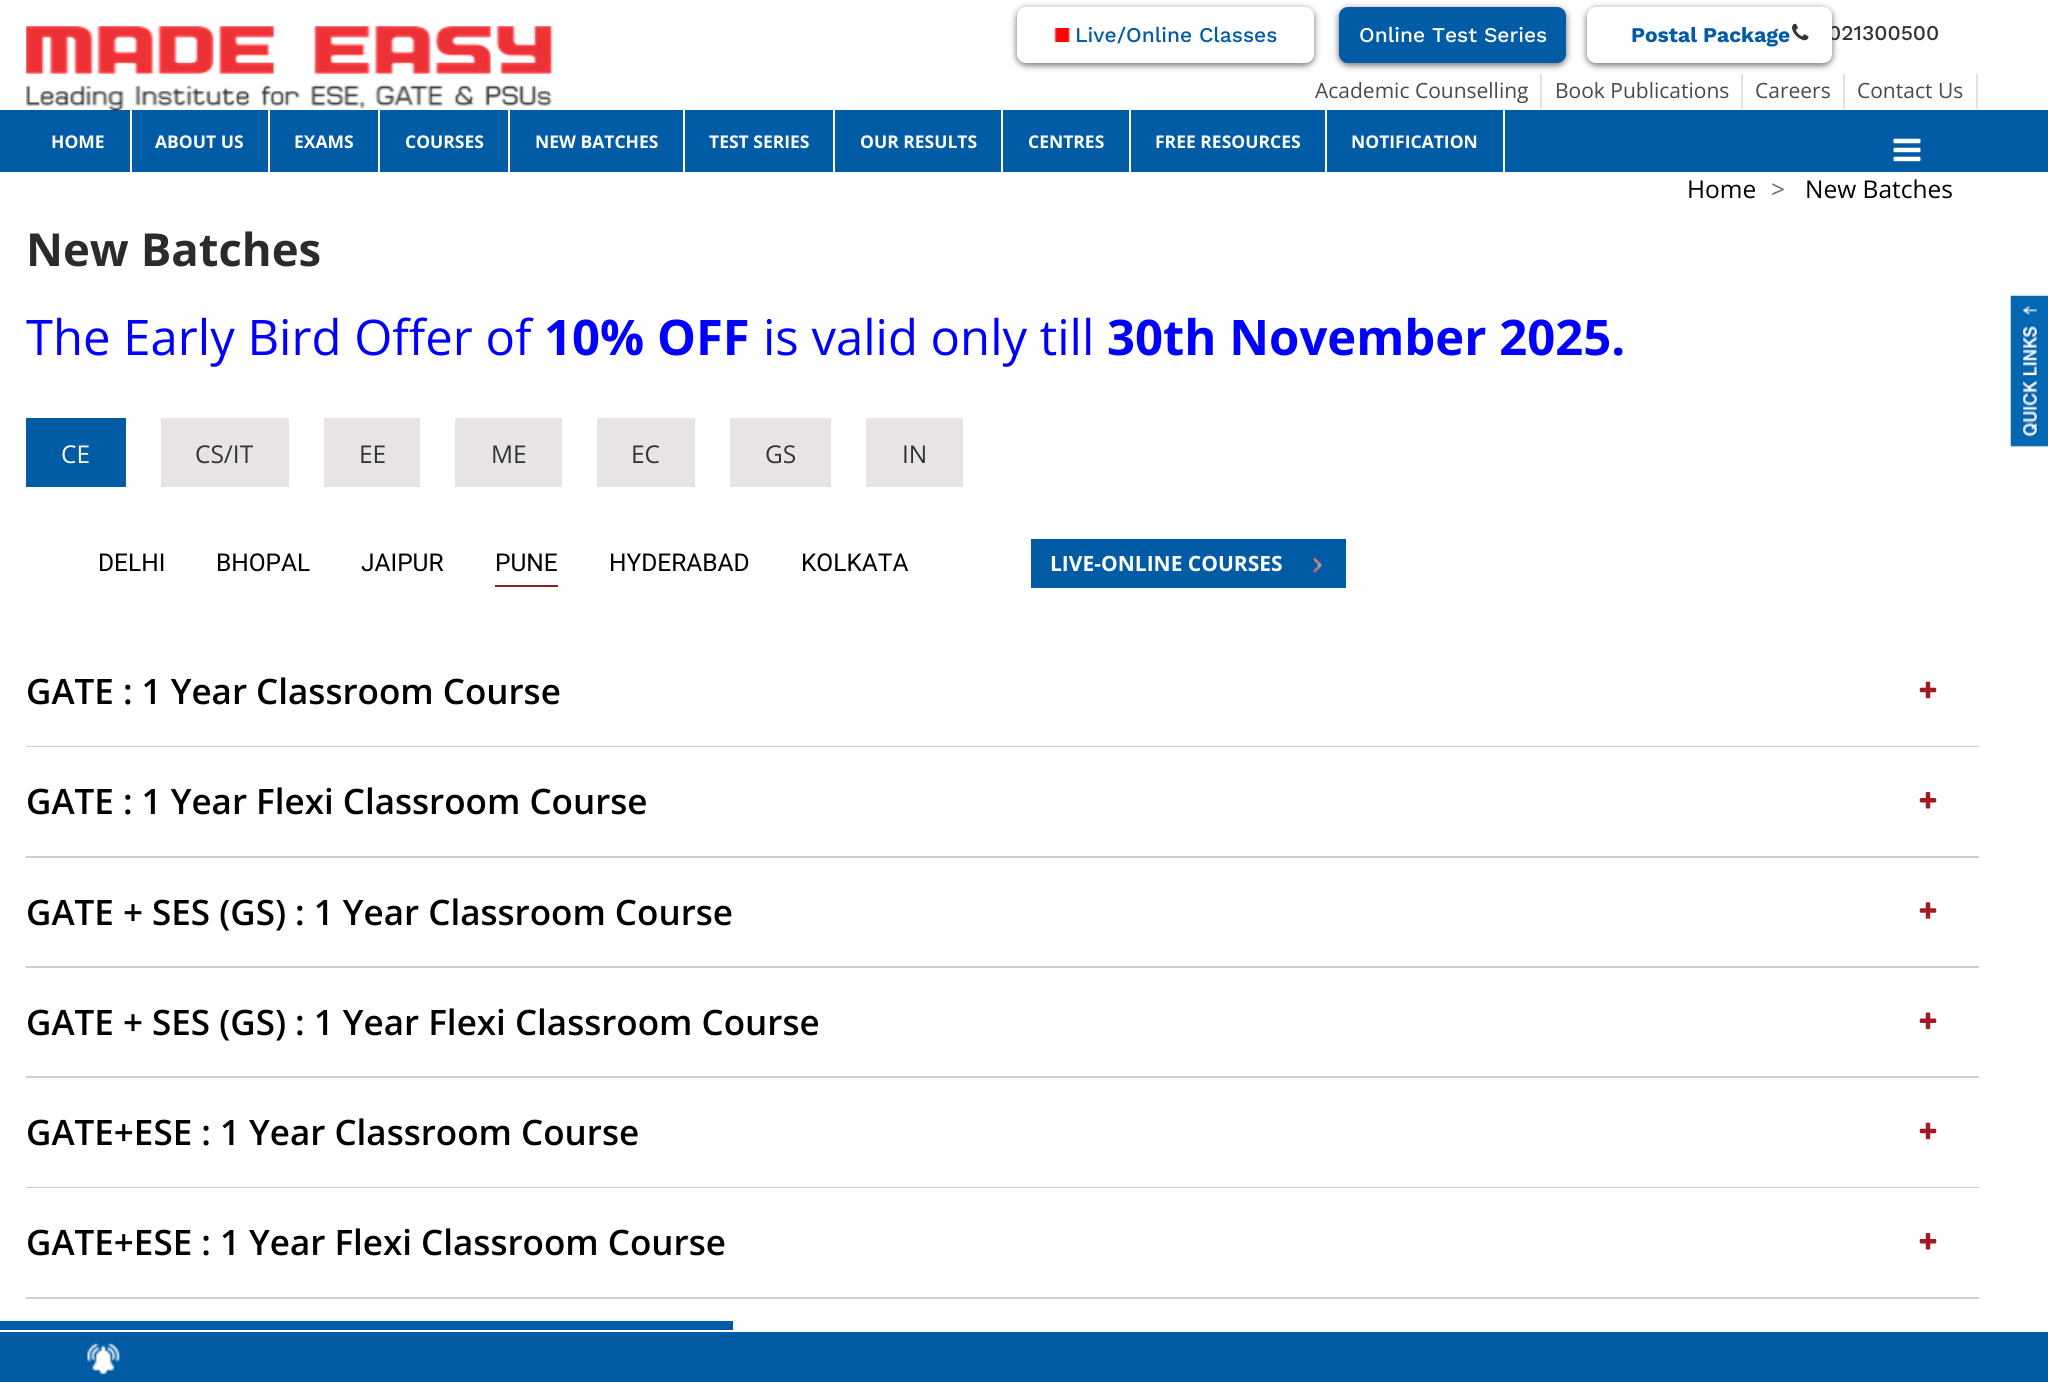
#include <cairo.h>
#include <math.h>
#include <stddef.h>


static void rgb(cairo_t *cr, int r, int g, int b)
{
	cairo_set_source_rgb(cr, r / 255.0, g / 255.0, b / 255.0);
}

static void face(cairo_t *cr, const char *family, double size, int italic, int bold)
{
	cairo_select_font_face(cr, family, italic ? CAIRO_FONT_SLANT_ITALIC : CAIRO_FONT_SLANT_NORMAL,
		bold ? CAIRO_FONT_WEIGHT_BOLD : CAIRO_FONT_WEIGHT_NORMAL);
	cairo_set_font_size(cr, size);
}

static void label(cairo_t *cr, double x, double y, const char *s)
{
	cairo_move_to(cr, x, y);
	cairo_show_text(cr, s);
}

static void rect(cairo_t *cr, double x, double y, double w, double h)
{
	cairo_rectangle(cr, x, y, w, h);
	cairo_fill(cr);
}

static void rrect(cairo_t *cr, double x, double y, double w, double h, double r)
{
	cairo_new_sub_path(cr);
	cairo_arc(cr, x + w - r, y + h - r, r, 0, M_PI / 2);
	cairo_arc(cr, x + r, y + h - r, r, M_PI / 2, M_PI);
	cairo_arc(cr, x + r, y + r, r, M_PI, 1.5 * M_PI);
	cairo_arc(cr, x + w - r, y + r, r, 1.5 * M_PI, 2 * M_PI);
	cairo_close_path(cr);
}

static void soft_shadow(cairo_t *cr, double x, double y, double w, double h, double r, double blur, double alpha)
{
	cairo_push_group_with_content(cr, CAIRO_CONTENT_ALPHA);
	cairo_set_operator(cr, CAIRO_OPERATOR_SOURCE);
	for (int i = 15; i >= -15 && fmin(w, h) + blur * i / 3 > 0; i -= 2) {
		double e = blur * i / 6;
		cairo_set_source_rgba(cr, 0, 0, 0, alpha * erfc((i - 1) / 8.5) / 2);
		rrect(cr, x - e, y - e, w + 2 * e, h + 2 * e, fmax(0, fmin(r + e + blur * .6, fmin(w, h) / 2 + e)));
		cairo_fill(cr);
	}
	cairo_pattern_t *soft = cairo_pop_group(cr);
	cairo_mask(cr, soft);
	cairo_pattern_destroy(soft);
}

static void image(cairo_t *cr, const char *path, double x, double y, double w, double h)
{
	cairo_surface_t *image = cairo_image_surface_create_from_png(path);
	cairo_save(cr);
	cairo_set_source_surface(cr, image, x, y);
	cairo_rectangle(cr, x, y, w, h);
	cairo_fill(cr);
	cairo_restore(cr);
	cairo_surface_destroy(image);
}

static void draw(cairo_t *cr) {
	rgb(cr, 255, 255, 255);
	cairo_paint(cr);
	rgb(cr, 1, 91, 165);
	rect(cr, 0, 110, 2048, 62);
	image(cr, "image0.png", 26, 26, 527, 85);
	rgb(cr, 0, 0, 0);
	soft_shadow(cr, 1017, 9, 297, 56, 9, 3.5, 0.6);
	rgb(cr, 255, 255, 255);
	rrect(cr, 1017, 7, 297, 56, 9);
	cairo_fill(cr);
	image(cr, "image1.png", 1054, 28, 16, 14);
	face(cr, "Work Sans Medium", 21, 0, 0);
	rgb(cr, 1, 91, 165);
	label(cr, 1075, 42, "Live/Online Classes");
	rgb(cr, 0, 0, 0);
	soft_shadow(cr, 1339, 9, 227, 56, 9, 3.5, 0.6);
	rgb(cr, 1, 91, 165);
	rrect(cr, 1339, 7, 227, 56, 9);
	cairo_fill(cr);
	rgb(cr, 255, 255, 255);
	label(cr, 1359, 42, "Online Test Series");
	rgb(cr, 0, 0, 0);
	soft_shadow(cr, 1587, 9, 245, 56, 9, 3.5, 0.6);
	rgb(cr, 51, 51, 51);
	label(cr, 1828, 40, "021300500");
	rgb(cr, 255, 255, 255);
	rrect(cr, 1587, 7, 245, 56, 9);
	cairo_fill(cr);
	face(cr, "Work Sans", 21, 0, 1);
	rgb(cr, 1, 91, 165);
	label(cr, 1631, 42, "Postal Package");
	image(cr, "image2.png", 1792, 23, 17, 18);
	rgb(cr, 225, 225, 225);
	rect(cr, 1540, 74, 2, 35);
	face(cr, "Open Sans", 21, 0, 0);
	rgb(cr, 74, 74, 74);
	label(cr, 1315, 98, "Academic Counselling");
	rgb(cr, 225, 225, 225);
	rect(cr, 1741, 74, 2, 35);
	rgb(cr, 74, 74, 74);
	label(cr, 1555, 98, "Book Publications");
	rgb(cr, 225, 225, 225);
	rect(cr, 1843, 74, 2, 35);
	rgb(cr, 74, 74, 74);
	label(cr, 1755, 98, "Careers");
	rgb(cr, 225, 225, 225);
	rect(cr, 1976, 74, 2, 35);
	rgb(cr, 74, 74, 74);
	label(cr, 1857, 98, "Contact Us");
	rgb(cr, 255, 255, 255);
	rect(cr, 130, 110, 2, 62);
	face(cr, "Open Sans", 17.5, 0, 1);
	label(cr, 51, 148, "HOME");
	rect(cr, 268, 110, 2, 62);
	label(cr, 155, 148, "ABOUT US");
	rect(cr, 378, 110, 2, 62);
	label(cr, 294, 148, "EXAMS");
	rect(cr, 508, 110, 2, 62);
	label(cr, 405, 148, "COURSES");
	rect(cr, 683, 110, 2, 62);
	label(cr, 535, 148, "NEW BATCHES");
	rect(cr, 833, 110, 2, 62);
	label(cr, 709, 148, "TEST SERIES");
	rect(cr, 1001, 110, 2, 62);
	label(cr, 860, 148, "OUR RESULTS");
	rect(cr, 1129, 110, 2, 62);
	label(cr, 1028, 148, "CENTRES");
	rect(cr, 1325, 110, 2, 62);
	label(cr, 1155, 148, "FREE RESOURCES");
	rect(cr, 1503, 110, 2, 62);
	label(cr, 1351, 148, "NOTIFICATION");
	image(cr, "image3.png", 1893, 138, 28, 24);
	face(cr, "Open Sans", 24.5, 0, 0);
	rgb(cr, 0, 0, 0);
	label(cr, 1687, 198, "Home");
	rgb(cr, 99, 108, 114);
	label(cr, 1771, 198, ">");
	rgb(cr, 0, 0, 0);
	label(cr, 1805, 198, "New Batches");
	face(cr, "Open Sans", 45.5, 0, 1);
	rgb(cr, 41, 43, 44);
	label(cr, 26, 266, "New Batches");
	face(cr, "Open Sans", 49, 0, 0);
	rgb(cr, 0, 0, 255);
	label(cr, 26, 355, "The Early Bird Offer of");
	face(cr, "Open Sans", 49, 0, 1);
	label(cr, 544, 355, "10% OFF");
	face(cr, "Open Sans", 49, 0, 0);
	label(cr, 763, 355, "is valid only till");
	face(cr, "Open Sans", 49, 0, 1);
	label(cr, 1107, 355, "30th November 2025.");
	rgb(cr, 1, 91, 165);
	rect(cr, 26, 418, 100, 69);
	face(cr, "Open Sans", 24.5, 0, 0);
	rgb(cr, 255, 255, 255);
	label(cr, 61, 463, "CE");
	rgb(cr, 232, 228, 229);
	rect(cr, 161, 418, 128, 69);
	rgb(cr, 51, 51, 51);
	label(cr, 195, 463, "CS/IT");
	rgb(cr, 232, 228, 229);
	rect(cr, 324, 418, 96, 69);
	rgb(cr, 51, 51, 51);
	label(cr, 359, 463, "EE");
	rgb(cr, 232, 228, 229);
	rect(cr, 455, 418, 107, 69);
	rgb(cr, 51, 51, 51);
	label(cr, 491, 463, "ME");
	rgb(cr, 232, 228, 229);
	rect(cr, 597, 418, 98, 69);
	rgb(cr, 51, 51, 51);
	label(cr, 631, 463, "EC");
	rgb(cr, 232, 228, 229);
	rect(cr, 730, 418, 101, 69);
	rgb(cr, 51, 51, 51);
	label(cr, 765, 463, "GS");
	rgb(cr, 232, 228, 229);
	rect(cr, 866, 418, 97, 69);
	rgb(cr, 51, 51, 51);
	label(cr, 902, 463, "IN");
	face(cr, "Roboto", 24.5, 0, 0);
	rgb(cr, 0, 0, 0);
	label(cr, 98, 571, "DELHI");
	label(cr, 216, 571, "BHOPAL");
	label(cr, 361, 571, "JAIPUR");
	rgb(cr, 145, 28, 36);
	rect(cr, 495, 585, 63, 2);
	rgb(cr, 0, 0, 0);
	label(cr, 495, 571, "PUNE");
	label(cr, 609, 571, "HYDERABAD");
	label(cr, 801, 571, "KOLKATA");
	rgb(cr, 1, 91, 165);
	rect(cr, 1031, 539, 315, 49);
	image(cr, "image4.png", 1312, 558, 10, 15);
	face(cr, "Open Sans", 21, 0, 1);
	rgb(cr, 255, 255, 255);
	label(cr, 1050, 571, "LIVE-ONLINE COURSES");
	rgb(cr, 207, 207, 207);
	rect(cr, 26, 746, 1953, 1);
	face(cr, "Open Sans SemiBold", 35, 0, 0);
	rgb(cr, 0, 0, 0);
	label(cr, 26, 704, "GATE : 1 Year Classroom Course");
	image(cr, "image5.png", 1919, 681, 18, 18);
	rgb(cr, 207, 207, 207);
	rect(cr, 26, 856, 1953, 2);
	rgb(cr, 0, 0, 0);
	label(cr, 26, 814, "GATE : 1 Year Flexi Classroom Course");
	image(cr, "image6.png", 1919, 792, 18, 17);
	rgb(cr, 207, 207, 207);
	rect(cr, 26, 966, 1953, 2);
	rgb(cr, 0, 0, 0);
	label(cr, 26, 925, "GATE + SES (GS) : 1 Year Classroom Course");
	image(cr, "image7.png", 1919, 902, 18, 17);
	rgb(cr, 207, 207, 207);
	rect(cr, 26, 1076, 1953, 2);
	rgb(cr, 0, 0, 0);
	label(cr, 26, 1035, "GATE + SES (GS) : 1 Year Flexi Classroom Course");
	image(cr, "image8.png", 1919, 1012, 18, 17);
	rgb(cr, 207, 207, 207);
	rect(cr, 26, 1187, 1953, 1);
	rgb(cr, 0, 0, 0);
	label(cr, 26, 1145, "GATE+ESE : 1 Year Classroom Course");
	image(cr, "image5.png", 1919, 1122, 18, 18);
	rgb(cr, 207, 207, 207);
	rect(cr, 26, 1297, 1953, 2);
	rgb(cr, 0, 0, 0);
	label(cr, 26, 1255, "GATE+ESE : 1 Year Flexi Classroom Course");
	image(cr, "image6.png", 1919, 1233, 18, 17);
	rgb(cr, 1, 91, 165);
	rect(cr, 0, 1332, 2048, 50);
	image(cr, "image9.png", 87, 1343, 33, 32);
	image(cr, "image10.png", 2010, 295, 38, 152);
	rect(cr, 0, 1321, 733, 9);
}

int main(void) {
	cairo_surface_t *surface = cairo_image_surface_create(CAIRO_FORMAT_RGB24, 2048, 1382);
	cairo_t *cr = cairo_create(surface);
	cairo_font_options_t *options = cairo_font_options_create();
	cairo_font_options_set_hint_metrics(options, CAIRO_HINT_METRICS_OFF);
	cairo_font_options_set_hint_style(options, CAIRO_HINT_STYLE_NONE);
	cairo_set_font_options(cr, options);
	cairo_set_miter_limit(cr, 4);
	draw(cr);
	cairo_surface_write_to_png(surface, "render.png");
	cairo_font_options_destroy(options);
	cairo_destroy(cr);
	cairo_surface_destroy(surface);
	return 0;
}
